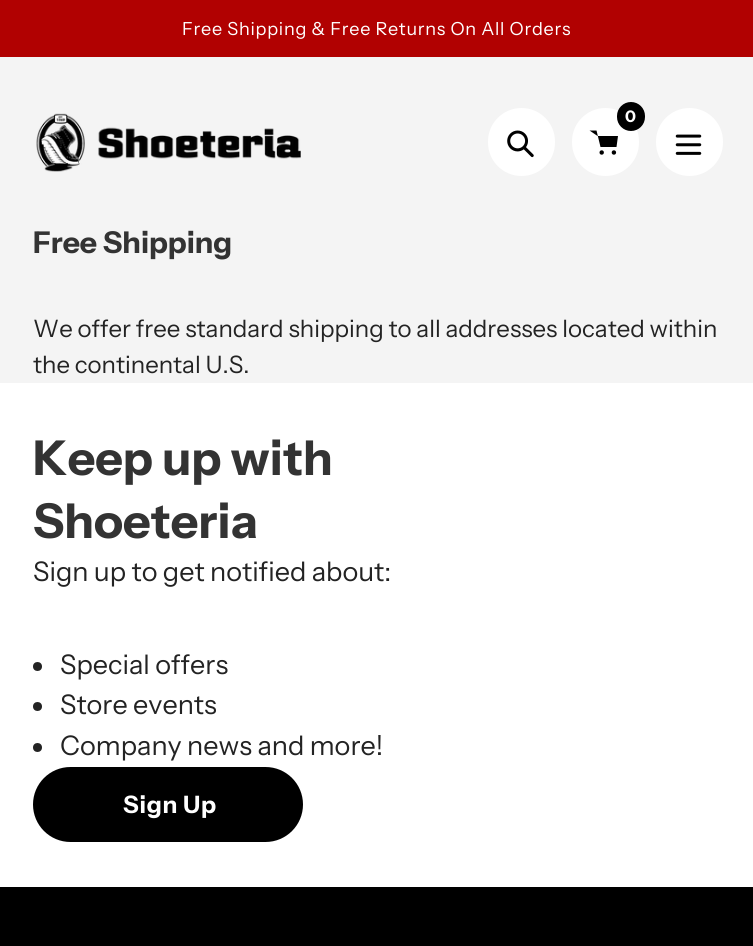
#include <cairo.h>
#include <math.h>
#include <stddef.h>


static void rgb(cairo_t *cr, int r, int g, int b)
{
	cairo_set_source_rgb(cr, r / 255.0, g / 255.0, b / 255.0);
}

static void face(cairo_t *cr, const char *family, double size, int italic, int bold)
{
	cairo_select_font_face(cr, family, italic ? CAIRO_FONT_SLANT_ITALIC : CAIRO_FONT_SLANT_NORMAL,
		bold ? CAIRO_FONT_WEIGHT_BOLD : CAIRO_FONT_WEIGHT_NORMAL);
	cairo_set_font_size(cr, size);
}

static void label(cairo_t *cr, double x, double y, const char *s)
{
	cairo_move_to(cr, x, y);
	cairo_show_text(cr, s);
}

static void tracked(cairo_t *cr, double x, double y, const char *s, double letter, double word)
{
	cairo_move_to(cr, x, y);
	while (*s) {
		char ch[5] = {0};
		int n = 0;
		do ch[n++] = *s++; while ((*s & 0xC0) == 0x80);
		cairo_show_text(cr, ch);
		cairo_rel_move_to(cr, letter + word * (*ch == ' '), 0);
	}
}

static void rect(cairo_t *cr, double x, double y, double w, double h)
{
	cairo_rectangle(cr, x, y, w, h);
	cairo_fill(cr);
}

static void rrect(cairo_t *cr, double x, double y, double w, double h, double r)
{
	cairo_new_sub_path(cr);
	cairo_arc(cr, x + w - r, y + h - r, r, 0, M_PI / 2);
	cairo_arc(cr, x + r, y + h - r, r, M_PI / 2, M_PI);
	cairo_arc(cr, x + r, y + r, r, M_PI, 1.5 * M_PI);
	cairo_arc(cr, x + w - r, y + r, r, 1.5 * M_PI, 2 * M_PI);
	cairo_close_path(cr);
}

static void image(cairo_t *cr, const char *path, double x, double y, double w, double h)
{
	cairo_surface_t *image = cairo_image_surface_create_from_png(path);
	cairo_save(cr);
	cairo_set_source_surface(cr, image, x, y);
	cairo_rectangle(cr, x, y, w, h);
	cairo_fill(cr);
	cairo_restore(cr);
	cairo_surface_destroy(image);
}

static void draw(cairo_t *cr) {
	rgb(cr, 244, 244, 244);
	cairo_paint(cr);
	rgb(cr, 177, 1, 1);
	rect(cr, 0, 0, 753, 57);
	face(cr, "Instrument Sans", 18, 0, 0);
	rgb(cr, 255, 255, 255);
	tracked(cr, 182, 35, "Free Shipping & Free Returns On All Orders", 0.75, 0);
	image(cr, "image0.png", 36, 113, 265, 59);
	rrect(cr, 488, 108, 67, 68, 33.5);
	cairo_fill(cr);
	image(cr, "image1.png", 507, 130, 27, 28);
	rrect(cr, 572, 108, 67, 68, 33.5);
	cairo_fill(cr);
	rgb(cr, 0, 0, 0);
	cairo_set_fill_rule(cr, CAIRO_FILL_RULE_EVEN_ODD);
	cairo_new_path(cr);
	cairo_move_to(cr, 597.5, 136);
	cairo_line_to(cr, 618, 136);
	cairo_line_to(cr, 616.5, 147);
	cairo_line_to(cr, 600.5, 147);
	cairo_line_to(cr, 596.5, 130.5);
	cairo_line_to(cr, 589.5, 130.5);
	cairo_fill(cr);
	rrect(cr, 617, 102, 28, 29, 14);
	cairo_fill(cr);
	face(cr, "Instrument Sans", 16, 0, 1);
	rgb(cr, 255, 255, 255);
	label(cr, 625, 122, "0");
	rgb(cr, 0, 0, 0);
	cairo_new_path(cr);
	cairo_arc(cr, 601.7, 152.5, 2.2, 0, 2 * M_PI);
	cairo_fill(cr);
	cairo_arc(cr, 613.9, 152.5, 2.2, 0, 2 * M_PI);
	cairo_fill(cr);
	rgb(cr, 255, 255, 255);
	rrect(cr, 656, 108, 67, 68, 33.5);
	cairo_fill(cr);
	image(cr, "image2.png", 675, 134, 27, 21);
	face(cr, "Instrument Sans", 30, 0, 1);
	rgb(cr, 51, 51, 51);
	label(cr, 33, 253, "Free Shipping");
	face(cr, "Instrument Sans", 24, 0, 0);
	rgb(cr, 35, 35, 35);
	label(cr, 33, 337, "We offer free standard shipping to all addresses located within");
	label(cr, 33, 373, "the continental U.S.");
	rgb(cr, 0, 0, 0);
	rect(cr, 0, 887, 753, 59);
	rgb(cr, 255, 255, 255);
	rect(cr, 0, 383, 753, 504);
	face(cr, "Instrument Sans", 48, 0, 1);
	rgb(cr, 51, 51, 51);
	label(cr, 33, 475, "Keep up with");
	label(cr, 33, 538, "Shoeteria");
	face(cr, "Instrument Sans", 27, 0, 0);
	rgb(cr, 35, 35, 35);
	label(cr, 33, 581, "Sign up to get notified about:");
	cairo_new_path(cr);
	cairo_arc(cr, 37.5, 666.5, 4.5, 0, 2 * M_PI);
	cairo_fill(cr);
	label(cr, 60, 674, "Special offers");
	cairo_new_path(cr);
	cairo_arc(cr, 37.5, 706.5, 4.5, 0, 2 * M_PI);
	cairo_fill(cr);
	label(cr, 60, 714, "Store events");
	cairo_new_path(cr);
	cairo_arc(cr, 37.5, 747.5, 4.5, 0, 2 * M_PI);
	cairo_fill(cr);
	label(cr, 60, 755, "Company news and more!");
	rgb(cr, 0, 0, 0);
	rrect(cr, 33, 767, 270, 75, 37.5);
	cairo_fill(cr);
	face(cr, "Instrument Sans", 24, 0, 1);
	rgb(cr, 255, 255, 255);
	tracked(cr, 123, 813, "Sign Up", 0.75, 0);
}

int main(void) {
	cairo_surface_t *surface = cairo_image_surface_create(CAIRO_FORMAT_RGB24, 753, 946);
	cairo_t *cr = cairo_create(surface);
	cairo_font_options_t *options = cairo_font_options_create();
	cairo_font_options_set_hint_metrics(options, CAIRO_HINT_METRICS_OFF);
	cairo_font_options_set_hint_style(options, CAIRO_HINT_STYLE_NONE);
	cairo_set_font_options(cr, options);
	cairo_set_miter_limit(cr, 4);
	draw(cr);
	cairo_surface_write_to_png(surface, "render.png");
	cairo_font_options_destroy(options);
	cairo_destroy(cr);
	cairo_surface_destroy(surface);
	return 0;
}
